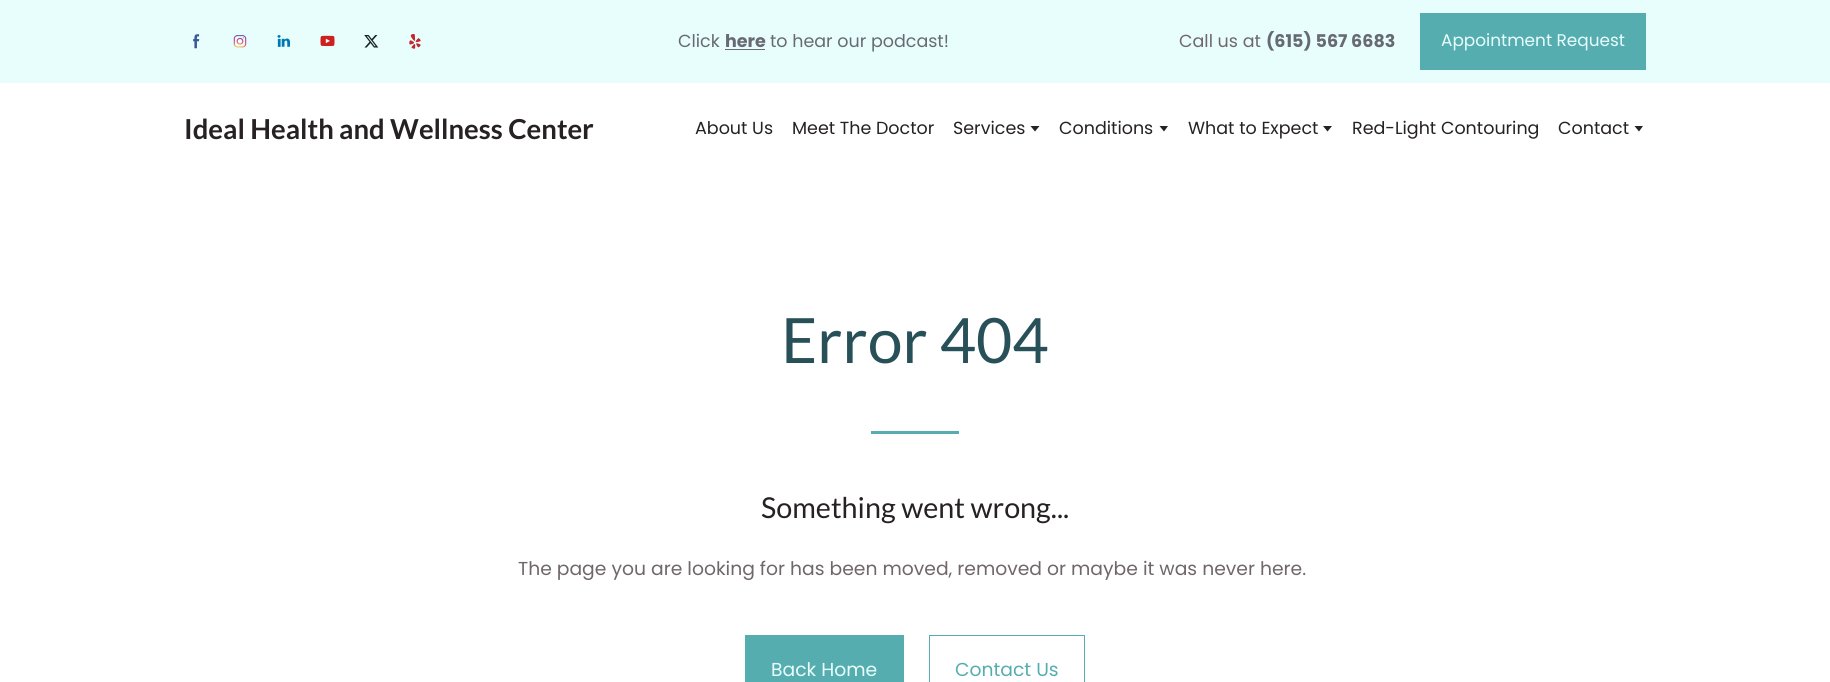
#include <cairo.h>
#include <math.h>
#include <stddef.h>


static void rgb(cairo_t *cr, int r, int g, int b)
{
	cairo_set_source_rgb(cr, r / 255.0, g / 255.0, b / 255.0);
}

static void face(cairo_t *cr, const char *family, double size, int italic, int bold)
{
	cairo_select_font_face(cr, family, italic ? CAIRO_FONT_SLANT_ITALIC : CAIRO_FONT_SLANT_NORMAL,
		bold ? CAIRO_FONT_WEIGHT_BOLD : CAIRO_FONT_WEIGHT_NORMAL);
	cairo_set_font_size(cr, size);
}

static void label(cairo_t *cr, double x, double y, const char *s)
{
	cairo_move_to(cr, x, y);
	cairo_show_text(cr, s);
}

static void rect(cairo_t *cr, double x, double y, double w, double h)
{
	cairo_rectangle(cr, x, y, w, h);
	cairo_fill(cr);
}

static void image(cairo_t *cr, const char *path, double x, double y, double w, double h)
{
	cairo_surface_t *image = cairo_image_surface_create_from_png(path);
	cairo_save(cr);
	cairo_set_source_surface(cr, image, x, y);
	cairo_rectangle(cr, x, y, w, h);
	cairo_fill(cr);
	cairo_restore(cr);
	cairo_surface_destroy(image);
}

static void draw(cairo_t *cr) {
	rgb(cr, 255, 255, 255);
	cairo_paint(cr);
	rgb(cr, 232, 254, 252);
	rect(cr, 0, 0, 1830, 83);
	image(cr, "image0.png", 193, 34, 7, 15);
	image(cr, "image1.png", 233, 35, 14, 13);
	image(cr, "image2.png", 277, 35, 13, 12);
	image(cr, "image3.png", 320, 35, 15, 12);
	image(cr, "image4.png", 364, 35, 15, 13);
	image(cr, "image5.png", 409, 34, 12, 15);
	face(cr, "Poppins", 17.5, 0, 0);
	rgb(cr, 103, 106, 115);
	label(cr, 678, 47, "Click");
	face(cr, "Poppins", 17.5, 0, 1);
	label(cr, 725, 47, "here");
	rect(cr, 725, 49, 40, 1);
	face(cr, "Poppins", 17.5, 0, 0);
	label(cr, 770, 47, "to hear our podcast!");
	rgb(cr, 112, 103, 107);
	label(cr, 1179, 47, "Call us at");
	face(cr, "Poppins", 17.5, 0, 1);
	rgb(cr, 103, 106, 115);
	label(cr, 1266, 47, "(615) 567 6683");
	rgb(cr, 86, 173, 176);
	rect(cr, 1420, 13, 226, 57);
	face(cr, "Poppins", 16.9, 0, 0);
	rgb(cr, 232, 254, 252);
	label(cr, 1441, 46, "Appointment Request");
	face(cr, "Lato", 27.5, 0, 1);
	rgb(cr, 38, 33, 35);
	label(cr, 184, 139, "Ideal Health and Wellness Cente");
	face(cr, "Lato", 28.75, 0, 1);
	label(cr, 582, 139, "r");
	face(cr, "Poppins", 17.5, 0, 0);
	label(cr, 695, 134, "About Us");
	label(cr, 792, 134, "Meet The Doctor");
	label(cr, 953, 134, "Services");
	cairo_new_path(cr);
	cairo_move_to(cr, 1035, 131.5);
	cairo_line_to(cr, 1039.5, 126);
	cairo_line_to(cr, 1030.5, 126);
	cairo_close_path(cr);
	cairo_fill(cr);
	label(cr, 1059, 134, "Conditions");
	cairo_new_path(cr);
	cairo_move_to(cr, 1164, 131.5);
	cairo_line_to(cr, 1168, 126);
	cairo_line_to(cr, 1159.5, 126);
	cairo_close_path(cr);
	cairo_fill(cr);
	label(cr, 1188, 134, "What to Expect");
	cairo_new_path(cr);
	cairo_move_to(cr, 1327.5, 131.5);
	cairo_line_to(cr, 1332, 126);
	cairo_line_to(cr, 1323, 126);
	cairo_close_path(cr);
	cairo_fill(cr);
	label(cr, 1352, 134, "Red-Light Contouring");
	label(cr, 1558, 134, "Contact");
	cairo_new_path(cr);
	cairo_move_to(cr, 1639, 131.5);
	cairo_line_to(cr, 1643, 126);
	cairo_line_to(cr, 1634.5, 126);
	cairo_close_path(cr);
	cairo_fill(cr);
	face(cr, "Lato", 62.5, 0, 0);
	rgb(cr, 40, 80, 89);
	label(cr, 781, 363, "Error 404");
	rgb(cr, 86, 173, 176);
	rect(cr, 871, 431, 88, 3);
	face(cr, "Lato", 28.75, 0, 0);
	rgb(cr, 38, 33, 35);
	label(cr, 761, 518, "Something went wrong...");
	face(cr, "Poppins", 18.75, 0, 0);
	rgb(cr, 112, 103, 107);
	label(cr, 518, 575, "The page you are looking for has been moved, removed or maybe it was never here.");
	rgb(cr, 86, 173, 176);
	rect(cr, 745, 635, 159, 47);
	rgb(cr, 232, 254, 252);
	label(cr, 771, 676, "Back Home");
	cairo_rectangle(cr, 929.5, 635.5, 155, 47);
	rgb(cr, 86, 173, 176);
	cairo_set_line_width(cr, 1);
	cairo_stroke(cr);
	label(cr, 955, 676, "Contact Us");
}

int main(void) {
	cairo_surface_t *surface = cairo_image_surface_create(CAIRO_FORMAT_RGB24, 1830, 682);
	cairo_t *cr = cairo_create(surface);
	cairo_font_options_t *options = cairo_font_options_create();
	cairo_font_options_set_hint_metrics(options, CAIRO_HINT_METRICS_OFF);
	cairo_font_options_set_hint_style(options, CAIRO_HINT_STYLE_NONE);
	cairo_set_font_options(cr, options);
	cairo_set_miter_limit(cr, 4);
	draw(cr);
	cairo_surface_write_to_png(surface, "render.png");
	cairo_font_options_destroy(options);
	cairo_destroy(cr);
	cairo_surface_destroy(surface);
	return 0;
}
